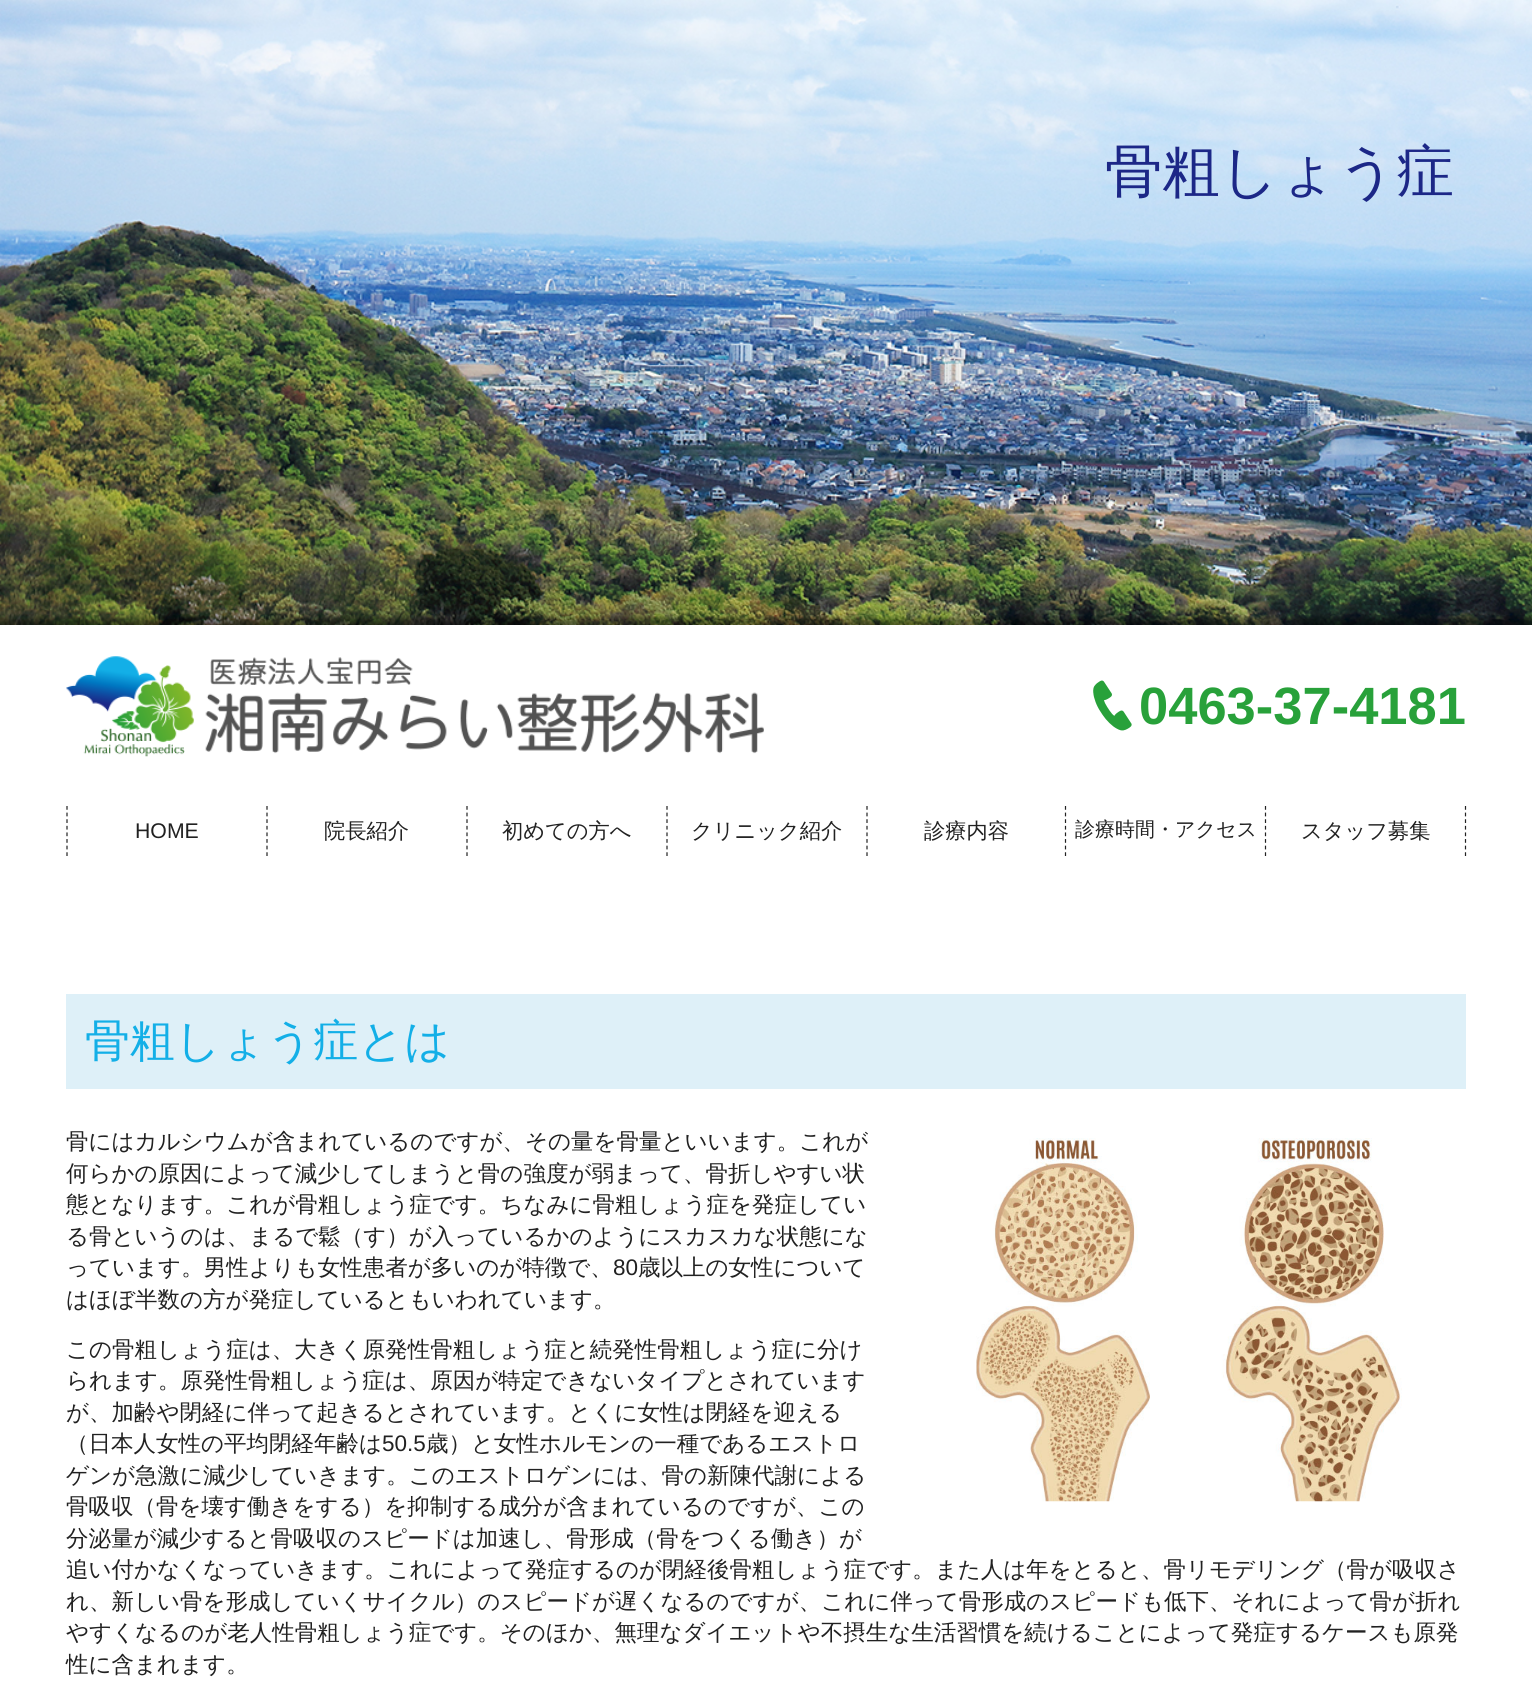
#include <cairo.h>
#include <math.h>
#include <stddef.h>


static void rgb(cairo_t *cr, int r, int g, int b)
{
	cairo_set_source_rgb(cr, r / 255.0, g / 255.0, b / 255.0);
}

static void face(cairo_t *cr, const char *family, double size, int italic, int bold)
{
	cairo_select_font_face(cr, family, italic ? CAIRO_FONT_SLANT_ITALIC : CAIRO_FONT_SLANT_NORMAL,
		bold ? CAIRO_FONT_WEIGHT_BOLD : CAIRO_FONT_WEIGHT_NORMAL);
	cairo_set_font_size(cr, size);
}

static void label(cairo_t *cr, double x, double y, const char *s)
{
	cairo_move_to(cr, x, y);
	cairo_show_text(cr, s);
}

static void rect(cairo_t *cr, double x, double y, double w, double h)
{
	cairo_rectangle(cr, x, y, w, h);
	cairo_fill(cr);
}

static void image(cairo_t *cr, const char *path, double x, double y, double w, double h)
{
	cairo_surface_t *image = cairo_image_surface_create_from_png(path);
	cairo_save(cr);
	cairo_set_source_surface(cr, image, x, y);
	cairo_rectangle(cr, x, y, w, h);
	cairo_fill(cr);
	cairo_restore(cr);
	cairo_surface_destroy(image);
}

static void draw(cairo_t *cr) {
	rgb(cr, 255, 255, 255);
	cairo_paint(cr);
	image(cr, "image0.png", 0, 0, 1532, 625);
	face(cr, "WenQuanYi Zen Hei Medium", 57.5, 0, 0);
	rgb(cr, 28, 39, 135);
	label(cr, 1105, 191, "骨粗しょう症");
	image(cr, "image1.png", 66, 656, 698, 101);
	image(cr, "image2.png", 1093, 680, 39, 51);
	face(cr, "Liberation Sans", 52.5, 0, 1);
	rgb(cr, 40, 161, 58);
	label(cr, 1139, 724, "0463-37-4181");
	cairo_new_path(cr);
	cairo_move_to(cr, 67, 806);
	cairo_line_to(cr, 67, 856);
	rgb(cr, 33, 33, 33);
	cairo_set_line_width(cr, 1.2);
	cairo_set_dash(cr, (double[]){3.75, 2.86}, 2, 0);
	cairo_stroke(cr);
	face(cr, "Liberation Sans", 21.25, 0, 0);
	label(cr, 135, 838, "HOME");
	cairo_new_path(cr);
	cairo_move_to(cr, 267, 806);
	cairo_line_to(cr, 267, 856);
	cairo_stroke(cr);
	face(cr, "WenQuanYi Zen Hei Medium", 21.25, 0, 0);
	label(cr, 324, 838, "院長紹介");
	cairo_new_path(cr);
	cairo_move_to(cr, 467, 806);
	cairo_line_to(cr, 467, 856);
	cairo_stroke(cr);
	label(cr, 502, 838, "初めての方へ");
	cairo_new_path(cr);
	cairo_move_to(cr, 667, 806);
	cairo_line_to(cr, 667, 856);
	cairo_stroke(cr);
	label(cr, 691, 838, "クリニック紹介");
	cairo_new_path(cr);
	cairo_move_to(cr, 867, 806);
	cairo_line_to(cr, 867, 856);
	cairo_stroke(cr);
	label(cr, 924, 838, "診療内容");
	cairo_new_path(cr);
	cairo_move_to(cr, 1065.5, 806);
	cairo_line_to(cr, 1065.5, 856);
	cairo_stroke(cr);
	face(cr, "WenQuanYi Zen Hei Medium", 20, 0, 0);
	label(cr, 1075, 836, "診療時間・アクセス");
	cairo_new_path(cr);
	cairo_move_to(cr, 1465.5, 806);
	cairo_line_to(cr, 1465.5, 856);
	cairo_stroke(cr);
	cairo_new_path(cr);
	cairo_move_to(cr, 1265.5, 806);
	cairo_line_to(cr, 1265.5, 856);
	cairo_stroke(cr);
	face(cr, "WenQuanYi Zen Hei Medium", 21.25, 0, 0);
	label(cr, 1301, 838, "スタッフ募集");
	rgb(cr, 222, 240, 248);
	rect(cr, 66, 994, 1400, 95);
	face(cr, "WenQuanYi Zen Hei Medium", 45, 0, 0);
	rgb(cr, 19, 175, 231);
	label(cr, 85, 1056, "骨粗しょう症とは");
	face(cr, "WenQuanYi Zen Hei Medium", 22.5, 0, 0);
	rgb(cr, 33, 33, 33);
	label(cr, 66, 1149, "骨にはカルシウムが含まれているのですが、その量を骨量といいます。これが");
	label(cr, 66, 1181, "何らかの原因によって減少してしまうと骨の強度が弱まって、骨折しやすい状");
	label(cr, 66, 1212, "態となります。これが骨粗しょう症です。ちなみに骨粗しょう症を発症してい");
	label(cr, 66, 1244, "る骨というのは、まるで鬆（す）が入っているかのようにスカスカな状態にな");
	label(cr, 66, 1275, "っています。男性よりも女性患者が多いのが特徴で、");
	face(cr, "Liberation Sans", 22.5, 0, 0);
	label(cr, 613, 1275, "80");
	face(cr, "WenQuanYi Zen Hei Medium", 22.5, 0, 0);
	label(cr, 638, 1275, "歳以上の女性について");
	label(cr, 66, 1307, "はほぼ半数の方が発症しているともいわれています。");
	label(cr, 66, 1357, "この骨粗しょう症は、大きく原発性骨粗しょう症と続発性骨粗しょう症に分け");
	label(cr, 66, 1388, "られます。原発性骨粗しょう症は、原因が特定できないタイプとされています");
	label(cr, 66, 1420, "が、加齢や閉経に伴って起きるとされています。とくに女性は閉経を迎える");
	label(cr, 66, 1451, "（日本人女性の平均閉経年齢は");
	face(cr, "Liberation Sans", 22.5, 0, 0);
	label(cr, 382, 1451, "50.5");
	face(cr, "WenQuanYi Zen Hei Medium", 22.5, 0, 0);
	label(cr, 426, 1451, "歳）と女性ホルモンの一種であるエストロ");
	label(cr, 66, 1483, "ゲンが急激に減少していきます。このエストロゲンには、骨の新陳代謝による");
	label(cr, 66, 1514, "骨吸収（骨を壊す働きをする）を抑制する成分が含まれているのですが、この");
	label(cr, 66, 1546, "分泌量が減少すると骨吸収のスピードは加速し、骨形成（骨をつくる働き）が");
	label(cr, 66, 1577, "追い付かなくなっていきます。これによって発症するのが閉経後骨粗しょう症です。また人は年をとると、骨リモデリング（骨が吸収さ");
	label(cr, 66, 1609, "れ、新しい骨を形成していくサイクル）のスピードが遅くなるのですが、これに伴って骨形成のスピードも低下、それによって骨が折れ");
	label(cr, 66, 1640, "やすくなるのが老人性骨粗しょう症です。そのほか、無理なダイエットや不摂生な生活習慣を続けることによって発症するケースも原発");
	label(cr, 66, 1672, "性に含まれます。");
	image(cr, "image3.png", 976, 1138, 426, 364);
}

int main(void) {
	cairo_surface_t *surface = cairo_image_surface_create(CAIRO_FORMAT_RGB24, 1532, 1686);
	cairo_t *cr = cairo_create(surface);
	cairo_font_options_t *options = cairo_font_options_create();
	cairo_font_options_set_hint_metrics(options, CAIRO_HINT_METRICS_OFF);
	cairo_font_options_set_hint_style(options, CAIRO_HINT_STYLE_NONE);
	cairo_set_font_options(cr, options);
	cairo_set_miter_limit(cr, 4);
	draw(cr);
	cairo_surface_write_to_png(surface, "render.png");
	cairo_font_options_destroy(options);
	cairo_destroy(cr);
	cairo_surface_destroy(surface);
	return 0;
}
